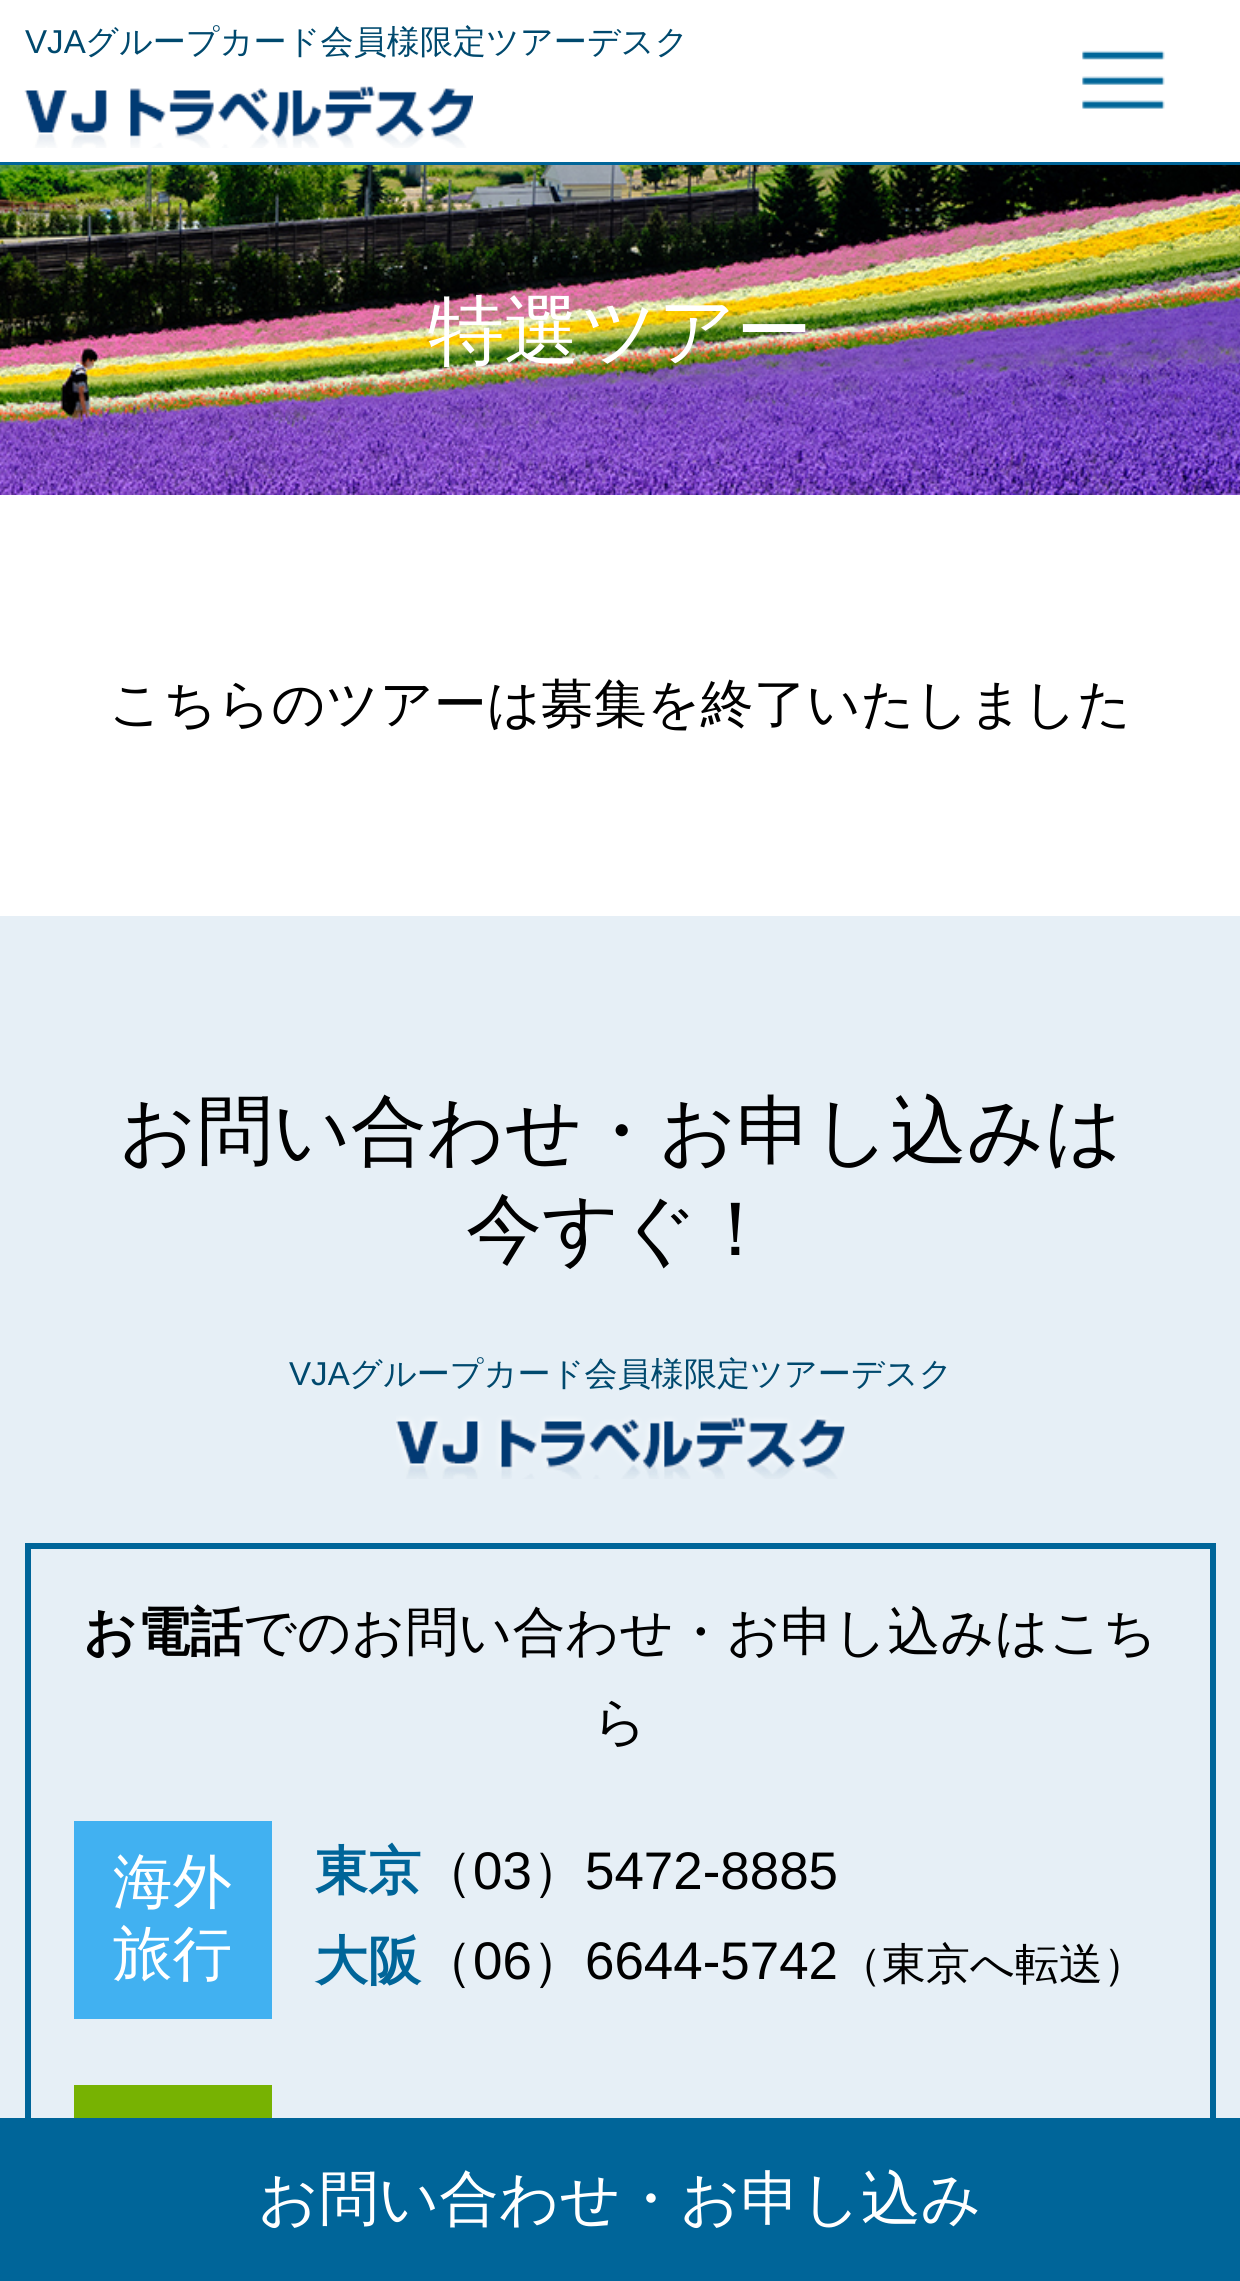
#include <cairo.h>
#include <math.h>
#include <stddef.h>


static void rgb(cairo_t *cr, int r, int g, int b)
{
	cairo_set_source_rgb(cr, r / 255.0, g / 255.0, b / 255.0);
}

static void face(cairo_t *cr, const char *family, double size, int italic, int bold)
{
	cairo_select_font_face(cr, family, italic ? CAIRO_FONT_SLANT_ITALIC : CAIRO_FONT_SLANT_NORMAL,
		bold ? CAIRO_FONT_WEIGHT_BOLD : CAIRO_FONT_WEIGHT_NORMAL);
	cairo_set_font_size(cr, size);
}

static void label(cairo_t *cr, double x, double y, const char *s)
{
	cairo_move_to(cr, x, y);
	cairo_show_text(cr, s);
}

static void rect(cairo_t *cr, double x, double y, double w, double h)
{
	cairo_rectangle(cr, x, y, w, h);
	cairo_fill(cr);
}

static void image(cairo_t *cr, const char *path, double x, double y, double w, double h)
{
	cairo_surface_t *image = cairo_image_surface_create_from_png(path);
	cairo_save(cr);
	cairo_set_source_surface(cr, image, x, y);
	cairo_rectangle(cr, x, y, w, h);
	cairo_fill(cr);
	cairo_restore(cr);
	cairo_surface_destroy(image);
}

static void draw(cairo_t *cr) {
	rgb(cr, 255, 255, 255);
	cairo_paint(cr);
	rgb(cr, 0, 101, 153);
	rect(cr, 0, 162, 1240, 3);
	face(cr, "Liberation Sans", 33.1, 0, 0);
	rgb(cr, 0, 73, 110);
	label(cr, 25, 53, "VJA");
	face(cr, "WenQuanYi Zen Hei Medium", 33.1, 0, 0);
	label(cr, 85, 53, "グループカード会員様限定ツアーデスク");
	image(cr, "image0.png", 24, 86, 449, 62);
	image(cr, "image1.png", 1082, 50, 83, 59);
	image(cr, "image2.png", 0, 165, 1240, 330);
	face(cr, "WenQuanYi Zen Hei Medium", 76.1, 0, 0);
	rgb(cr, 255, 255, 255);
	label(cr, 428, 357, "特選ツアー");
	face(cr, "WenQuanYi Zen Hei Medium", 52.9, 0, 0);
	rgb(cr, 0, 0, 0);
	label(cr, 109, 722, "こちらのツアーは募集を終了いたしました");
	rgb(cr, 230, 239, 246);
	rect(cr, 0, 916, 1240, 1202);
	face(cr, "WenQuanYi Zen Hei Medium", 76.1, 0, 0);
	rgb(cr, 0, 0, 0);
	label(cr, 119, 1157, "お問い合わせ・お申し込みは");
	label(cr, 466, 1255, "今すぐ！");
	face(cr, "Liberation Sans", 33.1, 0, 0);
	rgb(cr, 0, 73, 110);
	label(cr, 289, 1385, "VJA");
	face(cr, "WenQuanYi Zen Hei Medium", 33.1, 0, 0);
	label(cr, 349, 1385, "グループカード会員様限定ツアーデスク");
	image(cr, "image3.png", 396, 1415, 449, 64);
	cairo_rectangle(cr, 28, 1546, 1185, 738);
	rgb(cr, 0, 101, 153);
	cairo_set_line_width(cr, 6);
	cairo_stroke(cr);
	face(cr, "WenQuanYi Zen Hei", 52.9, 0, 1);
	rgb(cr, 0, 0, 0);
	label(cr, 83, 1650, "お電話");
	face(cr, "WenQuanYi Zen Hei Medium", 52.9, 0, 0);
	label(cr, 243, 1650, "でのお問い合わせ・お申し込みはこち");
	label(cr, 593, 1740, "ら");
	rgb(cr, 65, 177, 241);
	rect(cr, 74, 1821, 198, 198);
	face(cr, "WenQuanYi Zen Hei Medium", 59.5, 0, 0);
	rgb(cr, 255, 255, 255);
	label(cr, 113, 1902, "海外");
	label(cr, 113, 1974, "旅行");
	face(cr, "WenQuanYi Zen Hei", 52.9, 0, 1);
	rgb(cr, 0, 101, 153);
	label(cr, 315, 1889, "東京");
	face(cr, "WenQuanYi Zen Hei Medium", 52.9, 0, 0);
	rgb(cr, 0, 0, 0);
	label(cr, 420, 1889, "（");
	face(cr, "Liberation Sans", 52.9, 0, 0);
	label(cr, 473, 1889, "03");
	face(cr, "WenQuanYi Zen Hei Medium", 52.9, 0, 0);
	label(cr, 532, 1889, "）");
	face(cr, "Liberation Sans", 52.9, 0, 0);
	label(cr, 585, 1889, "5472-8885");
	face(cr, "WenQuanYi Zen Hei", 52.9, 0, 1);
	rgb(cr, 0, 101, 153);
	label(cr, 315, 1979, "大阪");
	face(cr, "WenQuanYi Zen Hei Medium", 52.9, 0, 0);
	rgb(cr, 0, 0, 0);
	label(cr, 420, 1979, "（");
	face(cr, "Liberation Sans", 52.9, 0, 0);
	label(cr, 473, 1979, "06");
	face(cr, "WenQuanYi Zen Hei Medium", 52.9, 0, 0);
	label(cr, 532, 1979, "）");
	face(cr, "Liberation Sans", 52.9, 0, 0);
	label(cr, 585, 1979, "6644-5742");
	face(cr, "WenQuanYi Zen Hei Medium", 44, 0, 0);
	label(cr, 838, 1979, "（東京へ転送）");
	rgb(cr, 119, 178, 2);
	rect(cr, 74, 2085, 198, 33);
	rgb(cr, 0, 101, 153);
	rect(cr, 0, 2118, 1240, 163);
	face(cr, "WenQuanYi Zen Hei Medium", 59.5, 0, 0);
	rgb(cr, 255, 255, 255);
	label(cr, 258, 2219, "お問い合わせ・お申し込み");
}

int main(void) {
	cairo_surface_t *surface = cairo_image_surface_create(CAIRO_FORMAT_RGB24, 1240, 2281);
	cairo_t *cr = cairo_create(surface);
	cairo_font_options_t *options = cairo_font_options_create();
	cairo_font_options_set_hint_metrics(options, CAIRO_HINT_METRICS_OFF);
	cairo_font_options_set_hint_style(options, CAIRO_HINT_STYLE_NONE);
	cairo_set_font_options(cr, options);
	cairo_set_miter_limit(cr, 4);
	draw(cr);
	cairo_surface_write_to_png(surface, "render.png");
	cairo_font_options_destroy(options);
	cairo_destroy(cr);
	cairo_surface_destroy(surface);
	return 0;
}
